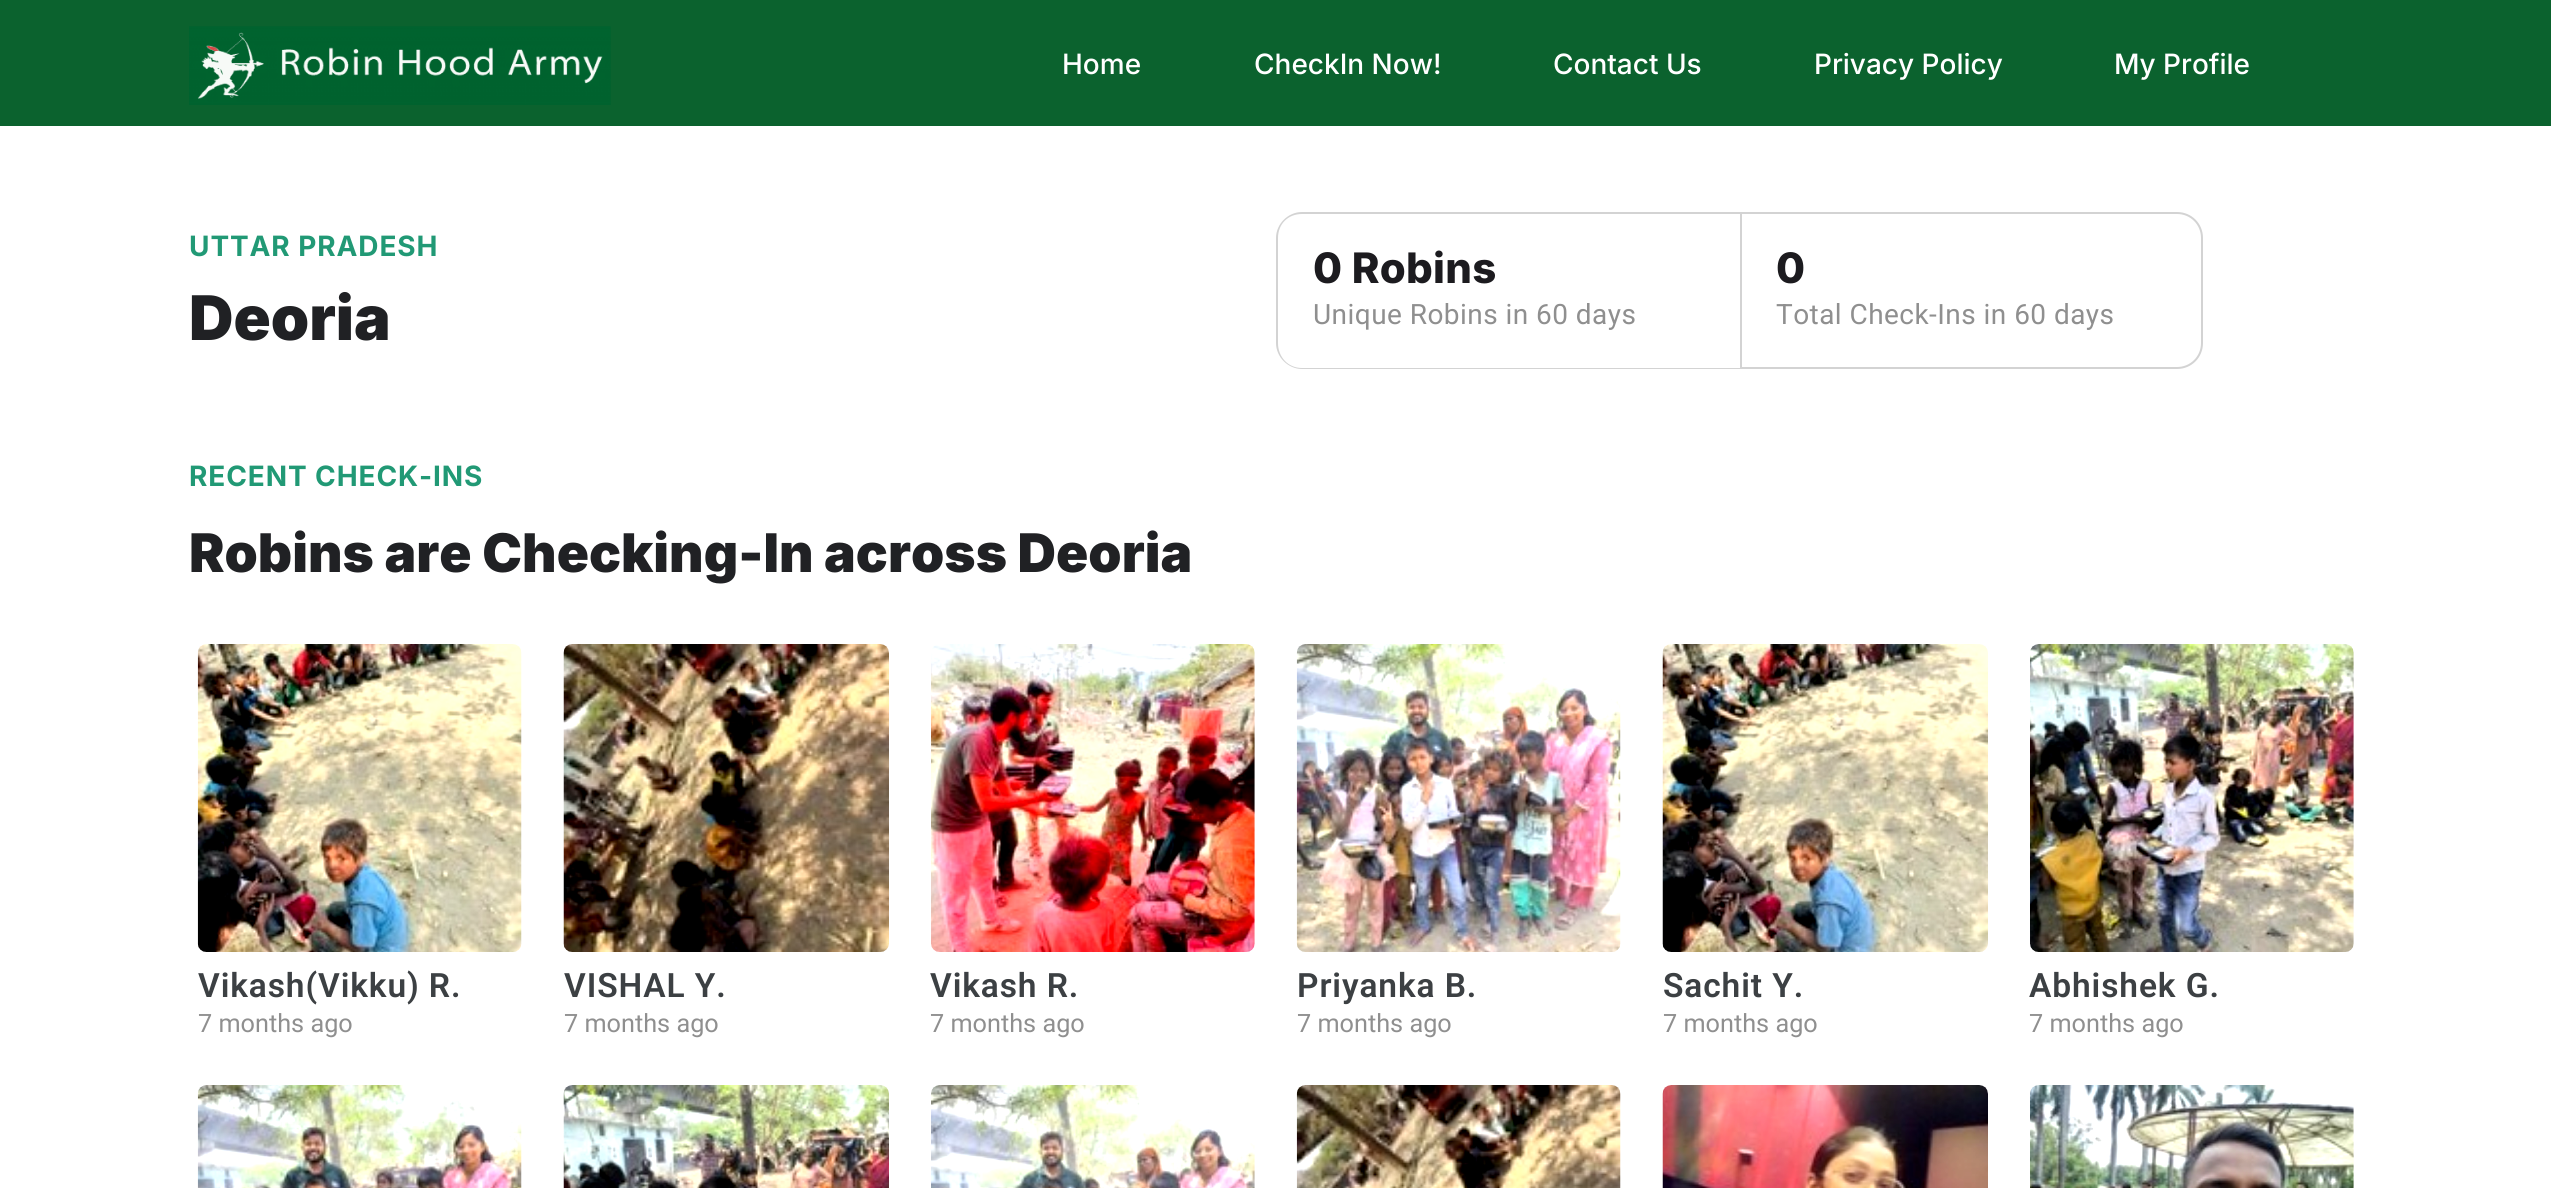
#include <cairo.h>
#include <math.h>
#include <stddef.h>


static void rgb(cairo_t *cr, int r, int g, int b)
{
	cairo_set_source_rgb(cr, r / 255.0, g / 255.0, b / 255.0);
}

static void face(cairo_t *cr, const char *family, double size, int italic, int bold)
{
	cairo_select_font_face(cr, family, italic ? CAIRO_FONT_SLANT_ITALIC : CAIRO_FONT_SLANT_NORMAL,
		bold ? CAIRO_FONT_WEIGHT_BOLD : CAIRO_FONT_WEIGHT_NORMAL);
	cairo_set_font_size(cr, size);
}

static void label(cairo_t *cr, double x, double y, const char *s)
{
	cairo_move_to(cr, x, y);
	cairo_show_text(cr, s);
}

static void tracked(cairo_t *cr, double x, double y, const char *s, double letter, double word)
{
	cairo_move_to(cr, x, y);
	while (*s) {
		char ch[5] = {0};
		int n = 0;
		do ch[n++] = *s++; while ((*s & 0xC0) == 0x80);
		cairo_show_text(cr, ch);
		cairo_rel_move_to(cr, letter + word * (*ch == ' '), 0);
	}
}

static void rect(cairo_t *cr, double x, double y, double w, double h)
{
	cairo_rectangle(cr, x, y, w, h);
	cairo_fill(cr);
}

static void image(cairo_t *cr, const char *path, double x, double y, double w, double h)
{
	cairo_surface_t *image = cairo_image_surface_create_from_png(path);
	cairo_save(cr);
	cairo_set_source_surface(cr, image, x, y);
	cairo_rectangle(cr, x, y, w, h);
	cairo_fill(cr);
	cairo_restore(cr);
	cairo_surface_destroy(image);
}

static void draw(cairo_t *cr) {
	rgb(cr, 255, 255, 255);
	cairo_paint(cr);
	rgb(cr, 11, 98, 46);
	rect(cr, 0, 0, 2551, 126);
	image(cr, "image0.png", 189, 26, 422, 79);
	face(cr, "Inter Medium", 28, 0, 0);
	rgb(cr, 255, 255, 255);
	label(cr, 1062, 74, "Home");
	label(cr, 1254, 74, "CheckIn Now!");
	label(cr, 1553, 74, "Contact Us");
	label(cr, 1814, 74, "Privacy Policy");
	label(cr, 2114, 74, "My Profile");
	face(cr, "Inter", 28, 0, 1);
	rgb(cr, 33, 153, 117);
	tracked(cr, 189, 256, "UTTAR PRADESH", 0.9, 0);
	face(cr, "Inter Black", 61.5, 0, 0);
	rgb(cr, 32, 33, 36);
	label(cr, 189, 340, "Deoria");
	rgb(cr, 211, 211, 211);
	cairo_set_fill_rule(cr, CAIRO_FILL_RULE_EVEN_ODD);
	cairo_new_path(cr);
	cairo_move_to(cr, 1302, 212);
	cairo_line_to(cr, 1740, 212);
	cairo_line_to(cr, 1740, 369);
	cairo_line_to(cr, 1302, 369);
	cairo_curve_to(cr, 1288, 369, 1276, 357, 1276, 343);
	cairo_line_to(cr, 1276, 238);
	cairo_curve_to(cr, 1276, 224, 1288, 212, 1302, 212);
	cairo_close_path(cr);
	cairo_move_to(cr, 1302, 214);
	cairo_line_to(cr, 1740, 214);
	cairo_line_to(cr, 1740, 368);
	cairo_line_to(cr, 1302, 368);
	cairo_curve_to(cr, 1288, 368, 1278, 357, 1278, 343);
	cairo_line_to(cr, 1278, 238);
	cairo_curve_to(cr, 1278, 224, 1288, 214, 1302, 214);
	cairo_close_path(cr);
	cairo_fill(cr);
	face(cr, "Inter ExtraBold", 42, 0, 0);
	rgb(cr, 28, 27, 31);
	tracked(cr, 1313, 283, "0 Robins", 0.25, 0);
	face(cr, "Roboto", 28, 0, 0);
	rgb(cr, 143, 143, 143);
	tracked(cr, 1313, 324, "Unique Robins in 60 days", 0.45, 0);
	cairo_new_path(cr);
	cairo_move_to(cr, 1741, 213);
	cairo_line_to(cr, 2177, 213);
	cairo_curve_to(cr, 2191, 213, 2202, 224, 2202, 238);
	cairo_line_to(cr, 2202, 343);
	cairo_curve_to(cr, 2202, 357, 2191, 368, 2177, 368);
	cairo_line_to(cr, 1741, 368);
	cairo_close_path(cr);
	rgb(cr, 211, 211, 211);
	cairo_stroke(cr);
	face(cr, "Inter ExtraBold", 42, 0, 0);
	rgb(cr, 28, 27, 31);
	tracked(cr, 1776, 283, "0", 0.25, 0);
	face(cr, "Roboto", 28, 0, 0);
	rgb(cr, 143, 143, 143);
	tracked(cr, 1776, 324, "Total Check-Ins in 60 days", 0.45, 0);
	face(cr, "Inter", 28, 0, 1);
	rgb(cr, 33, 153, 117);
	tracked(cr, 189, 486, "RECENT CHECK-INS", 0.9, 0);
	face(cr, "Inter Black", 53.25, 0, 0);
	rgb(cr, 32, 33, 36);
	label(cr, 189, 572, "Robins are Checking-In across Deoria");
	image(cr, "image1.png", 197, 644, 325, 308);
	face(cr, "Roboto SemiBold", 33.5, 0, 0);
	rgb(cr, 60, 64, 67);
	tracked(cr, 198, 997, "Vikash(Vikku) R.", 0.9, 0);
	face(cr, "Roboto", 25.25, 0, 0);
	rgb(cr, 143, 143, 143);
	label(cr, 198, 1032, "7 months ago");
	image(cr, "image2.png", 563, 644, 326, 308);
	face(cr, "Roboto SemiBold", 33.5, 0, 0);
	rgb(cr, 60, 64, 67);
	tracked(cr, 564, 997, "VISHAL Y.", 0.9, 0);
	face(cr, "Roboto", 25.25, 0, 0);
	rgb(cr, 143, 143, 143);
	label(cr, 564, 1032, "7 months ago");
	image(cr, "image3.png", 931, 644, 324, 308);
	face(cr, "Roboto SemiBold", 33.5, 0, 0);
	rgb(cr, 60, 64, 67);
	tracked(cr, 930, 997, "Vikash R.", 0.9, 0);
	face(cr, "Roboto", 25.25, 0, 0);
	rgb(cr, 143, 143, 143);
	label(cr, 930, 1032, "7 months ago");
	image(cr, "image4.png", 1296, 644, 325, 308);
	face(cr, "Roboto SemiBold", 33.5, 0, 0);
	rgb(cr, 60, 64, 67);
	tracked(cr, 1297, 997, "Priyanka B.", 0.9, 0);
	face(cr, "Roboto", 25.25, 0, 0);
	rgb(cr, 143, 143, 143);
	label(cr, 1297, 1032, "7 months ago");
	image(cr, "image5.png", 1662, 644, 326, 308);
	face(cr, "Roboto SemiBold", 33.5, 0, 0);
	rgb(cr, 60, 64, 67);
	tracked(cr, 1663, 997, "Sachit Y.", 0.9, 0);
	face(cr, "Roboto", 25.25, 0, 0);
	rgb(cr, 143, 143, 143);
	label(cr, 1663, 1032, "7 months ago");
	image(cr, "image6.png", 2030, 644, 324, 308);
	face(cr, "Roboto SemiBold", 33.5, 0, 0);
	rgb(cr, 60, 64, 67);
	tracked(cr, 2029, 997, "Abhishek G.", 0.9, 0);
	face(cr, "Roboto", 25.25, 0, 0);
	rgb(cr, 143, 143, 143);
	label(cr, 2029, 1032, "7 months ago");
	image(cr, "image7.png", 197, 1085, 325, 103);
	image(cr, "image8.png", 563, 1085, 326, 103);
	image(cr, "image9.png", 931, 1085, 324, 103);
	image(cr, "image10.png", 1296, 1085, 325, 103);
	image(cr, "image11.png", 1662, 1085, 326, 103);
	image(cr, "image12.png", 2030, 1085, 324, 103);
}

int main(void) {
	cairo_surface_t *surface = cairo_image_surface_create(CAIRO_FORMAT_RGB24, 2551, 1188);
	cairo_t *cr = cairo_create(surface);
	cairo_font_options_t *options = cairo_font_options_create();
	cairo_font_options_set_hint_metrics(options, CAIRO_HINT_METRICS_OFF);
	cairo_font_options_set_hint_style(options, CAIRO_HINT_STYLE_NONE);
	cairo_set_font_options(cr, options);
	cairo_set_miter_limit(cr, 4);
	draw(cr);
	cairo_surface_write_to_png(surface, "render.png");
	cairo_font_options_destroy(options);
	cairo_destroy(cr);
	cairo_surface_destroy(surface);
	return 0;
}
